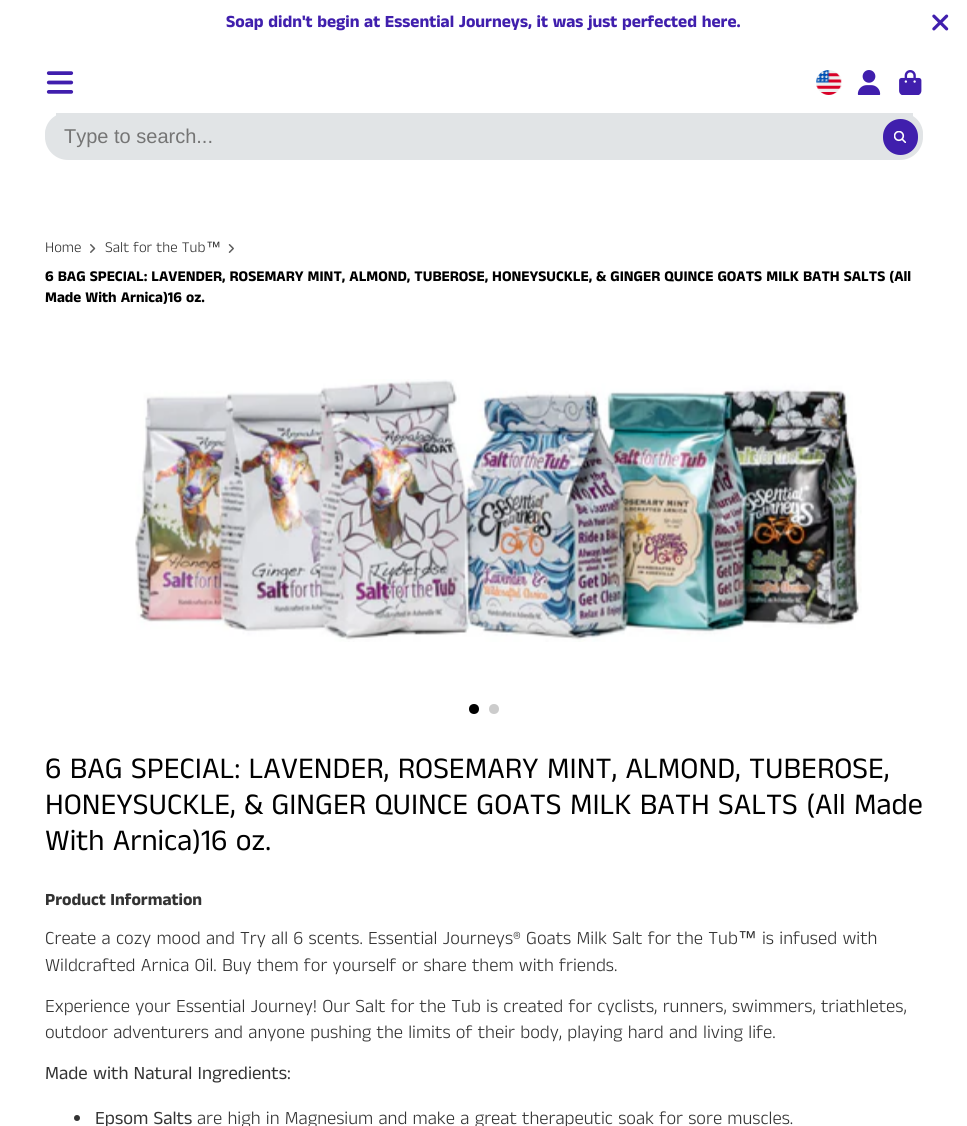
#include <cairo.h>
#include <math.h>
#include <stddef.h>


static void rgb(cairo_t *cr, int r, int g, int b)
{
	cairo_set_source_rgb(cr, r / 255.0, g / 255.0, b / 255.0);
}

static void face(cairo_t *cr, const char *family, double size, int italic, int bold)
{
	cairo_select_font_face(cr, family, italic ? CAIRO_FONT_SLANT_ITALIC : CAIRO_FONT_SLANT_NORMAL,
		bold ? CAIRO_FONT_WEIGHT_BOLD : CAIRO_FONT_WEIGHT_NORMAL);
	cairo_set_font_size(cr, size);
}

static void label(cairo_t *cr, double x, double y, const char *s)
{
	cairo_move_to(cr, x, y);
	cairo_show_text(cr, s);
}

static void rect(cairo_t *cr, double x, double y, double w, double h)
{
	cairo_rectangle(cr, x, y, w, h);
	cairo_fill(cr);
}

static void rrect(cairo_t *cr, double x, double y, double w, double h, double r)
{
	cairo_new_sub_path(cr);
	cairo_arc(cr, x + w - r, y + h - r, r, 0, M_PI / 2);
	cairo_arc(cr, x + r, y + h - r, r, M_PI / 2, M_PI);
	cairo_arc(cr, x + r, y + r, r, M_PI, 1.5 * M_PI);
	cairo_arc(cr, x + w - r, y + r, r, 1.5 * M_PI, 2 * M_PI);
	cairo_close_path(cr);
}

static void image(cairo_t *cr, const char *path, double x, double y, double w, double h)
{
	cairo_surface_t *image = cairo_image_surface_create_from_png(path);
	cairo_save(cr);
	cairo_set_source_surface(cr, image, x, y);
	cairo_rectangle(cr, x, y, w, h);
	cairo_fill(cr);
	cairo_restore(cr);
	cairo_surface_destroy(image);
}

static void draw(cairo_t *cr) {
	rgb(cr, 255, 255, 255);
	cairo_paint(cr);
	face(cr, "Anek Tamil", 17.25, 0, 1);
	rgb(cr, 64, 31, 173);
	label(cr, 226, 27, "Soap didn't begin at Essential Journeys, it was just perfected here.");
	image(cr, "image0.png", 932, 14, 17, 17);
	image(cr, "image1.png", 46, 71, 28, 23);
	image(cr, "image2.png", 816, 70, 26, 25);
	image(cr, "image3.png", 857, 70, 24, 25);
	image(cr, "image4.png", 899, 70, 23, 25);
	rgb(cr, 225, 228, 230);
	rrect(cr, 45, 113, 878, 42, 21);
	cairo_fill(cr);
	rect(cr, 56, 113, 857, 3);
	rrect(cr, 45, 113, 878, 47, 23);
	cairo_fill(cr);
	face(cr, "Liberation Sans", 20, 0, 0);
	rgb(cr, 117, 117, 117);
	label(cr, 64, 143, "Type to search...");
	rgb(cr, 64, 31, 173);
	rrect(cr, 883, 119, 35, 36, 17.5);
	cairo_fill(cr);
	image(cr, "image5.png", 894, 131, 12, 12);
	face(cr, "Anek Tamil Light", 15, 0, 0);
	rgb(cr, 51, 51, 51);
	label(cr, 45, 252, "Home");
	image(cr, "image6.png", 90, 244, 6, 9);
	label(cr, 105, 252, "Salt for the Tub");
	face(cr, "Liberation Sans", 15, 0, 0);
	label(cr, 206, 252, "™");
	image(cr, "image7.png", 228, 244, 6, 9);
	face(cr, "Anek Tamil", 15, 0, 1);
	rgb(cr, 0, 0, 0);
	label(cr, 45, 281, "6 BAG SPECIAL: LAVENDER, ROSEMARY MINT, ALMOND, TUBEROSE, HONEYSUCKLE, & GINGER QUINCE GOATS MILK BATH SALTS (All");
	label(cr, 45, 302, "Made With Arnica)16 oz.");
	image(cr, "image8.png", 135, 379, 727, 263);
	cairo_arc(cr, 474, 709, 5, 0, 2 * M_PI);
	cairo_fill(cr);
	rgb(cr, 204, 204, 204);
	cairo_arc(cr, 494, 709, 5, 0, 2 * M_PI);
	cairo_fill(cr);
	face(cr, "Anek Tamil", 30.2, 0, 0);
	rgb(cr, 0, 0, 0);
	label(cr, 45, 778, "6 BAG SPECIAL: LAVENDER, ROSEMARY MINT, ALMOND, TUBEROSE,");
	label(cr, 45, 814, "HONEYSUCKLE, & GINGER QUINCE GOATS MILK BATH SALTS (All Made");
	label(cr, 45, 850, "With Arnica)16 oz.");
	face(cr, "Anek Tamil", 17.25, 0, 1);
	rgb(cr, 51, 51, 51);
	label(cr, 45, 905, "Product Information");
	face(cr, "Anek Tamil Light", 18.75, 0, 0);
	label(cr, 45, 944, "Create a cozy mood and Try all 6 scents. Essential Journeys® Goats Milk Salt for the Tub");
	face(cr, "Liberation Sans", 18.75, 0, 0);
	label(cr, 738, 944, "™");
	face(cr, "Anek Tamil Light", 18.75, 0, 0);
	label(cr, 762, 944, "is infused with");
	label(cr, 45, 971, "Wildcrafted Arnica Oil. Buy them for yourself or share them with friends.");
	label(cr, 45, 1012, "Experience your Essential Journey! Our Salt for the Tub is created for cyclists, runners, swimmers, triathletes,");
	label(cr, 45, 1038, "outdoor adventurers and anyone pushing the limits of their body, playing hard and living life.");
	face(cr, "Anek Tamil", 18.75, 0, 0);
	label(cr, 45, 1079, "Made with Natural Ingredients:");
	cairo_new_path(cr);
	cairo_arc(cr, 77, 1118, 3, 0, 2 * M_PI);
	cairo_fill(cr);
	label(cr, 95, 1124, "Epsom Salts");
	face(cr, "Anek Tamil Light", 18.75, 0, 0);
	label(cr, 197, 1124, "are high in Magnesium and make a great therapeutic soak for sore muscles.");
}

int main(void) {
	cairo_surface_t *surface = cairo_image_surface_create(CAIRO_FORMAT_RGB24, 967, 1126);
	cairo_t *cr = cairo_create(surface);
	cairo_font_options_t *options = cairo_font_options_create();
	cairo_font_options_set_hint_metrics(options, CAIRO_HINT_METRICS_OFF);
	cairo_font_options_set_hint_style(options, CAIRO_HINT_STYLE_NONE);
	cairo_set_font_options(cr, options);
	cairo_set_miter_limit(cr, 4);
	draw(cr);
	cairo_surface_write_to_png(surface, "render.png");
	cairo_font_options_destroy(options);
	cairo_destroy(cr);
	cairo_surface_destroy(surface);
	return 0;
}
